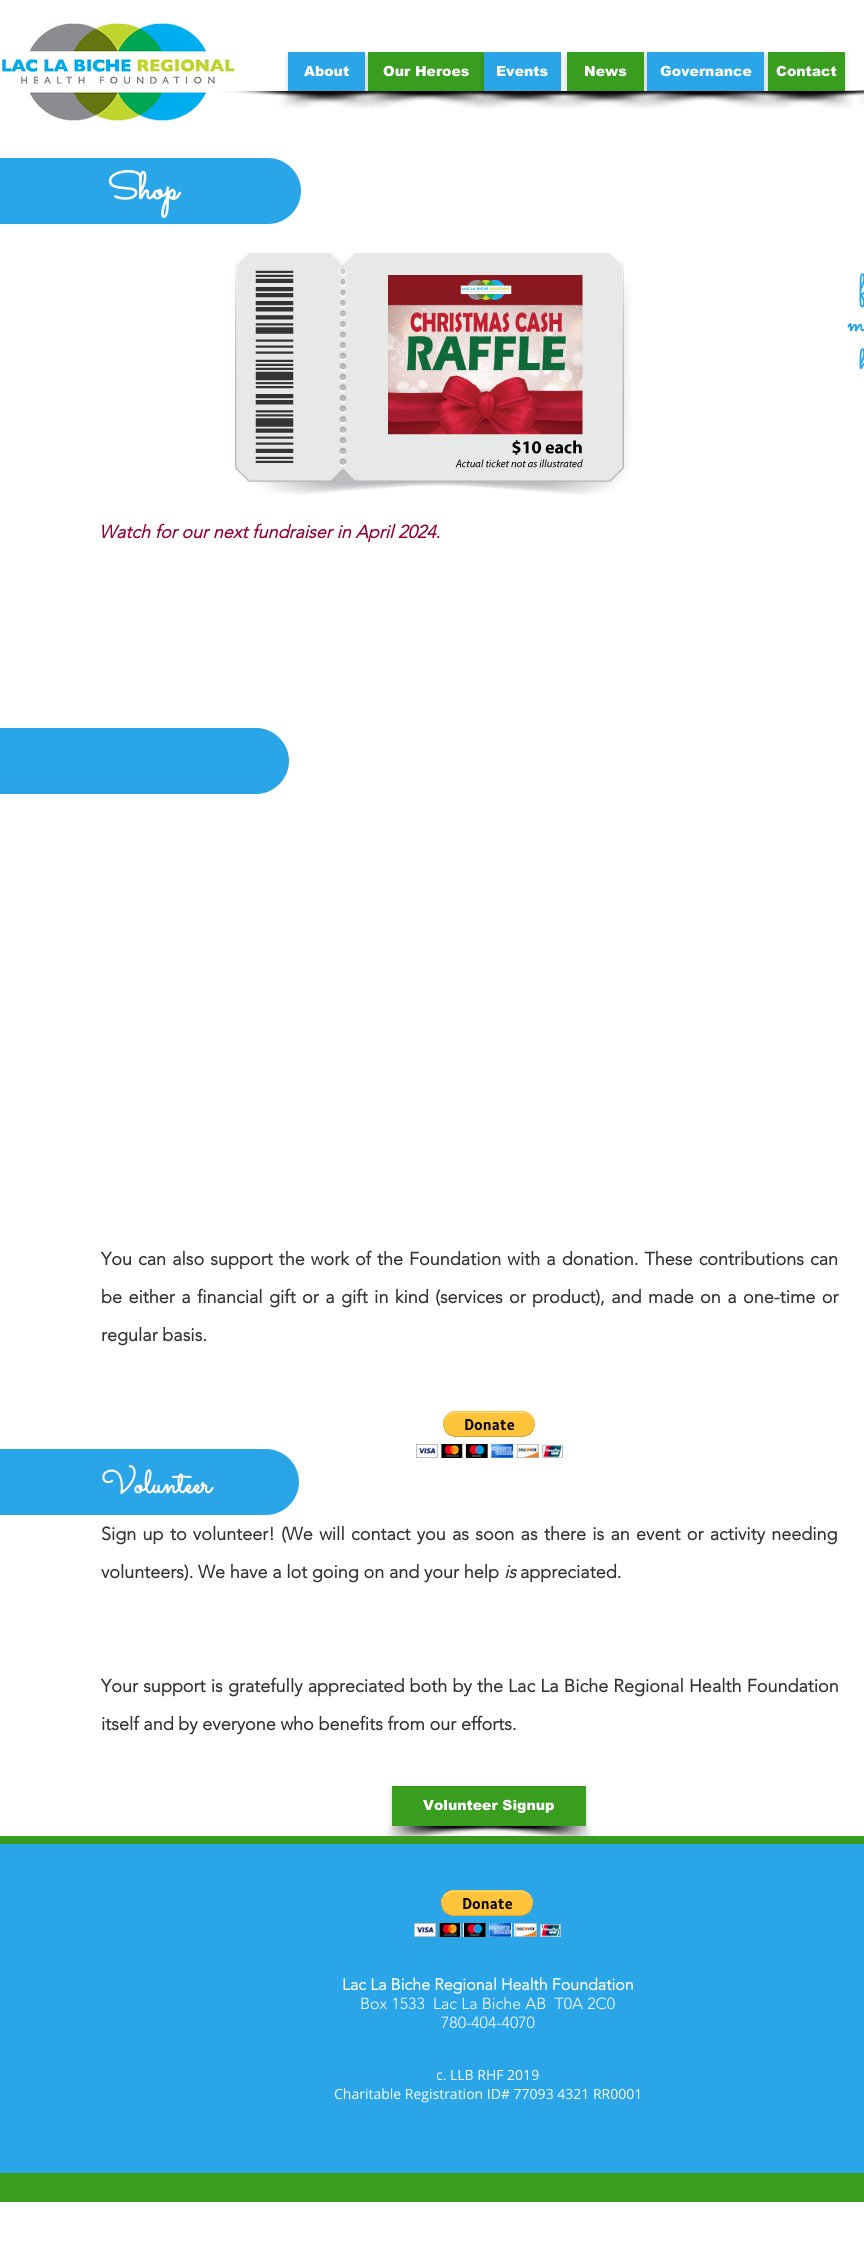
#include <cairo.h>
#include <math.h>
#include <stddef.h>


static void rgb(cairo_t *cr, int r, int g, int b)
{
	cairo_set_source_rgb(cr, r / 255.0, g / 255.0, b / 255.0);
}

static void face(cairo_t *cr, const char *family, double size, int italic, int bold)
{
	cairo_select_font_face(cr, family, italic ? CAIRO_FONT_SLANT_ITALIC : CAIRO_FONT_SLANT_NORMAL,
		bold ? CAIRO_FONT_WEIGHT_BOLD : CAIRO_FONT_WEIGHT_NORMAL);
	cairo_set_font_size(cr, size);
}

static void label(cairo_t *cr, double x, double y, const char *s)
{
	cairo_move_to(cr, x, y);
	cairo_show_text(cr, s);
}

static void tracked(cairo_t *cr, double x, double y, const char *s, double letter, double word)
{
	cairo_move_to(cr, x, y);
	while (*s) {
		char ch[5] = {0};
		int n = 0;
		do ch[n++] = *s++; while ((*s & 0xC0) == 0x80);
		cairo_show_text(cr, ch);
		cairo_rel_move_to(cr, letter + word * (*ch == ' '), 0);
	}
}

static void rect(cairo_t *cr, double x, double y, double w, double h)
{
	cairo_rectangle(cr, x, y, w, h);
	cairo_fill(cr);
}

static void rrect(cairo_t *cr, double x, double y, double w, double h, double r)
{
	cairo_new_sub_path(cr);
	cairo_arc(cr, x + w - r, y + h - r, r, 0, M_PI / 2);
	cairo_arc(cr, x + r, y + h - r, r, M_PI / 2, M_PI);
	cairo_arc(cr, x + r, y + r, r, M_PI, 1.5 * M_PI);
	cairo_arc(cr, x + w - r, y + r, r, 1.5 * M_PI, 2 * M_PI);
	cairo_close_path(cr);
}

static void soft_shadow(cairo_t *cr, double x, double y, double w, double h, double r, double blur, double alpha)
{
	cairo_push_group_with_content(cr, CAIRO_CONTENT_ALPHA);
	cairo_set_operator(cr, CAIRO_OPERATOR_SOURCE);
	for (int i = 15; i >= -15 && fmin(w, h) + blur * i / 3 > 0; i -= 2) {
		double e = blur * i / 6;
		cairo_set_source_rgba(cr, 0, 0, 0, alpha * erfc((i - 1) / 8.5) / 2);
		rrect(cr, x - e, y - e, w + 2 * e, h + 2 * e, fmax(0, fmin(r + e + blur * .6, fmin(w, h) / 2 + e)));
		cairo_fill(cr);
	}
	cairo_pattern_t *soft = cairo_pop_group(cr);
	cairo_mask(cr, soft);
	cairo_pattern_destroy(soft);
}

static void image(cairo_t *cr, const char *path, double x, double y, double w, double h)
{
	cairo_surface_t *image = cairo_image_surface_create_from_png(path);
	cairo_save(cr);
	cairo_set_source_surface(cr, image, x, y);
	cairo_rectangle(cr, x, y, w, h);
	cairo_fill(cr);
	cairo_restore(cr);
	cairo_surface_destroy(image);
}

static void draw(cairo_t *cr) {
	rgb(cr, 255, 255, 255);
	cairo_paint(cr);
	image(cr, "image0.png", 0, 23, 235, 99);
	image(cr, "image2.png", 279, 91, 144, 18);
	image(cr, "image1.png", 220, 91, 154, 18);
	rgb(cr, 0, 0, 0);
	soft_shadow(cr, 288, 56, 77, 39, 0, 3, 0.2);
	rgb(cr, 42, 165, 232);
	rect(cr, 288, 52, 77, 39);
	face(cr, "arial Black", 14, 0, 0);
	rgb(cr, 255, 255, 255);
	label(cr, 304, 76, "About");
	image(cr, "image3.png", 359, 91, 144, 18);
	image(cr, "image4.png", 365, 91, 129, 18);
	rgb(cr, 0, 0, 0);
	soft_shadow(cr, 368, 56, 117, 39, 0, 3, 0.2);
	rgb(cr, 57, 158, 32);
	rect(cr, 368, 52, 116, 39);
	rgb(cr, 255, 255, 255);
	label(cr, 383, 76, "Our Heroes");
	image(cr, "image6.png", 475, 91, 144, 18);
	image(cr, "image5.png", 452, 91, 118, 18);
	rgb(cr, 0, 0, 0);
	soft_shadow(cr, 484, 56, 77, 39, 0, 3, 0.2);
	rgb(cr, 42, 165, 232);
	rect(cr, 484, 52, 77, 39);
	rgb(cr, 255, 255, 255);
	label(cr, 496, 76, "Events");
	image(cr, "image8.png", 558, 91, 144, 18);
	image(cr, "image7.png", 539, 91, 114, 18);
	rgb(cr, 0, 0, 0);
	soft_shadow(cr, 567, 56, 77, 39, 0, 3, 0.2);
	rgb(cr, 57, 158, 32);
	rect(cr, 567, 52, 77, 39);
	rgb(cr, 255, 255, 255);
	label(cr, 584, 76, "News");
	image(cr, "image9.png", 638, 91, 145, 18);
	image(cr, "image4.png", 644, 91, 129, 18);
	rgb(cr, 0, 0, 0);
	soft_shadow(cr, 647, 56, 117, 39, 0, 3, 0.2);
	rgb(cr, 42, 165, 232);
	rect(cr, 647, 52, 117, 39);
	rgb(cr, 255, 255, 255);
	label(cr, 660, 76, "Governance");
	image(cr, "image11.png", 759, 91, 105, 18);
	image(cr, "image10.png", 733, 91, 121, 18);
	rgb(cr, 0, 0, 0);
	soft_shadow(cr, 768, 56, 77, 39, 0, 3, 0.2);
	rgb(cr, 57, 158, 32);
	rect(cr, 768, 52, 77, 39);
	rgb(cr, 255, 255, 255);
	label(cr, 776, 76, "Contact");
	image(cr, "image12.png", 827, 90, 37, 4);
	image(cr, "image13.png", 859, 94, 5, 11);
	rgb(cr, 42, 165, 232);
	rect(cr, 0, 158, 268, 66);
	cairo_new_path(cr);
	cairo_move_to(cr, 301, 191);
	cairo_curve_to(cr, 301, 209, 286, 224, 268, 224);
	cairo_curve_to(cr, 250, 224, 235, 209, 235, 191);
	cairo_curve_to(cr, 235, 173, 250, 158, 268, 158);
	cairo_curve_to(cr, 286, 158, 301, 173, 301, 191);
	cairo_close_path(cr);
	cairo_fill(cr);
	face(cr, "Sacramento", 38, 0, 1);
	rgb(cr, 255, 255, 255);
	label(cr, 107, 199, "Shop");
	image(cr, "image14.png", 235, 253, 396, 242);
	face(cr, "Sacramento", 28, 0, 1);
	rgb(cr, 42, 165, 232);
	label(cr, 859, 294, "f");
	label(cr, 847, 331, "m");
	label(cr, 859, 369, "h");
	face(cr, "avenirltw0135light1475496", 18, 1, 1);
	rgb(cr, 149, 0, 50);
	label(cr, 99, 538, "Watch for our next fundraiser in April 2024.");
	rgb(cr, 42, 165, 232);
	rect(cr, 0, 728, 260, 66);
	cairo_new_path(cr);
	cairo_move_to(cr, 289, 761);
	cairo_curve_to(cr, 289, 779, 274, 794, 256, 794);
	cairo_curve_to(cr, 238, 794, 223, 779, 223, 761);
	cairo_curve_to(cr, 223, 743, 238, 728, 256, 728);
	cairo_curve_to(cr, 274, 728, 289, 743, 289, 761);
	cairo_close_path(cr);
	cairo_fill(cr);
	face(cr, "avenirltw0135light1475496", 18, 0, 1);
	rgb(cr, 51, 51, 51);
	tracked(cr, 101, 1265, "You can also support the work of the Foundation with a donation. These contributions can", 0, 1.4);
	tracked(cr, 101, 1303, "be either a financial gift or a gift in kind (services or product), and made on a one-time or", 0, 1.75);
	label(cr, 101, 1341, "regular basis.");
	rgb(cr, 42, 165, 232);
	rect(cr, 0, 1449, 262, 66);
	face(cr, "Sacramento", 32, 0, 1);
	rgb(cr, 255, 255, 255);
	label(cr, 101, 1493, "Volunteer");
	face(cr, "avenirltw0135light1475496", 18, 0, 1);
	rgb(cr, 51, 51, 51);
	tracked(cr, 101, 1540, "Sign up to volunteer! (We will contact you as soon as there is an event or activity needing", 0, 1.6);
	label(cr, 101, 1578, "volunteers). We have a lot going on and your help");
	face(cr, "avenirltw0135light1475496", 18, 1, 1);
	label(cr, 504, 1578, "is");
	face(cr, "avenirltw0135light1475496", 18, 0, 1);
	label(cr, 520, 1578, "appreciated.");
	tracked(cr, 101, 1692, "Your support is gratefully appreciated both by the Lac La Biche Regional Health Foundation", 0, 0.5);
	label(cr, 101, 1730, "itself and by everyone who benefits from our efforts.");
	image(cr, "image15.png", 416, 1411, 147, 47);
	rgb(cr, 42, 165, 232);
	cairo_new_path(cr);
	cairo_move_to(cr, 299, 1482);
	cairo_curve_to(cr, 299, 1500, 284, 1515, 266, 1515);
	cairo_curve_to(cr, 248, 1515, 233, 1500, 233, 1482);
	cairo_curve_to(cr, 233, 1464, 248, 1449, 266, 1449);
	cairo_curve_to(cr, 284, 1449, 299, 1464, 299, 1482);
	cairo_close_path(cr);
	cairo_fill(cr);
	image(cr, "image16.png", 383, 1826, 144, 10);
	image(cr, "image17.png", 466, 1826, 129, 10);
	rgb(cr, 0, 0, 0);
	soft_shadow(cr, 392, 1790, 194, 40, 0, 3, 0.2);
	rgb(cr, 57, 158, 32);
	rect(cr, 392, 1786, 194, 40);
	face(cr, "arial Black", 14, 0, 0);
	rgb(cr, 255, 255, 255);
	label(cr, 423, 1810, "Volunteer Signup");
	rgb(cr, 57, 158, 32);
	rect(cr, 0, 1836, 864, 366);
	rgb(cr, 42, 165, 232);
	rect(cr, 0, 1844, 864, 329);
	image(cr, "image18.png", 414, 1890, 147, 47);
	face(cr, "avenirltw0135light1475496", 16, 0, 1);
	rgb(cr, 255, 255, 255);
	label(cr, 342, 1990, "Lac La Biche Regional Health Foundation");
	face(cr, "avenirltw0135light1475496 Light", 16, 0, 0);
	label(cr, 360, 2009, "Box 1533  Lac La Biche AB  T0A 2C0");
	label(cr, 441, 2028, "780-404-4070");
	face(cr, "Open Sans", 14, 0, 0);
	label(cr, 436, 2080, "c. LLB RHF 2019");
	label(cr, 334, 2099, "Charitable Registration ID# 77093 4321 RR0001");
}

int main(void) {
	cairo_surface_t *surface = cairo_image_surface_create(CAIRO_FORMAT_RGB24, 864, 2252);
	cairo_t *cr = cairo_create(surface);
	cairo_font_options_t *options = cairo_font_options_create();
	cairo_font_options_set_hint_metrics(options, CAIRO_HINT_METRICS_OFF);
	cairo_font_options_set_hint_style(options, CAIRO_HINT_STYLE_NONE);
	cairo_set_font_options(cr, options);
	cairo_set_miter_limit(cr, 4);
	draw(cr);
	cairo_surface_write_to_png(surface, "render.png");
	cairo_font_options_destroy(options);
	cairo_destroy(cr);
	cairo_surface_destroy(surface);
	return 0;
}
